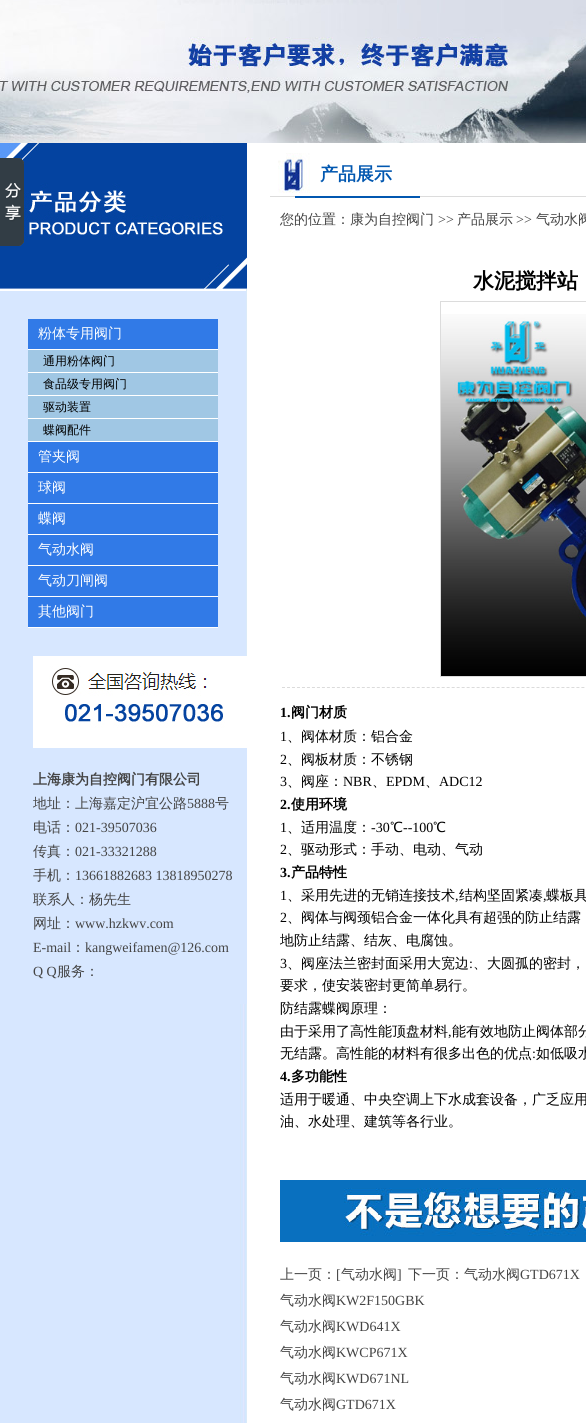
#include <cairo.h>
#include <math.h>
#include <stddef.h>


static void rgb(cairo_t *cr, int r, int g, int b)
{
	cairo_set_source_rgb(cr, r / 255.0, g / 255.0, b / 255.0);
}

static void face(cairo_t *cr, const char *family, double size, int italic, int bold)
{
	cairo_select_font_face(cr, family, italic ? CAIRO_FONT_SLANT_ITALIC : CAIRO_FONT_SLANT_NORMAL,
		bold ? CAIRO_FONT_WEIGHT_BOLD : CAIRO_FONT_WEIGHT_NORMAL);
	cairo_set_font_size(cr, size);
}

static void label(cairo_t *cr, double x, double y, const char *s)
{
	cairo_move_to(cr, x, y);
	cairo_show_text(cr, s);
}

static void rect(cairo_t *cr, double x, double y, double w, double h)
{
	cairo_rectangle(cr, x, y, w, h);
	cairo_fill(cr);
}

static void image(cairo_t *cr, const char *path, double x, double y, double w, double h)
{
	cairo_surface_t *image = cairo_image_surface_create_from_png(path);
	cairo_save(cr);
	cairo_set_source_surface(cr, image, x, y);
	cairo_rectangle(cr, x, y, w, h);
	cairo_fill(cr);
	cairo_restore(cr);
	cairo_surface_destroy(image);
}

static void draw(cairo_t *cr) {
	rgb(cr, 255, 255, 255);
	cairo_paint(cr);
	image(cr, "image0.png", 0, 0, 586, 143);
	image(cr, "image3.png", 0, 143, 247, 146);
	image(cr, "image1.png", 0, 158, 24, 88);
	image(cr, "image2.png", 0, 289, 247, 1134);
	rgb(cr, 215, 231, 255);
	rect(cr, 240, 291, 6, 365);
	rgb(cr, 255, 255, 255);
	rect(cr, 0, 289, 246, 2);
	rgb(cr, 49, 122, 231);
	rect(cr, 28, 319, 190, 30);
	rgb(cr, 255, 255, 255);
	rect(cr, 28, 349, 190, 1);
	face(cr, "WenQuanYi Zen Hei Medium", 14, 0, 0);
	label(cr, 38, 338, "粉体专用阀门");
	rgb(cr, 160, 199, 228);
	rect(cr, 28, 350, 190, 22);
	rgb(cr, 255, 255, 255);
	rect(cr, 28, 372, 190, 1);
	face(cr, "WenQuanYi Zen Hei Medium", 12, 0, 0);
	rgb(cr, 0, 0, 0);
	label(cr, 43, 365, "通用粉体阀门");
	rgb(cr, 160, 199, 228);
	rect(cr, 28, 373, 190, 22);
	rgb(cr, 255, 255, 255);
	rect(cr, 28, 395, 190, 1);
	rgb(cr, 0, 0, 0);
	label(cr, 43, 388, "食品级专用阀门");
	rgb(cr, 160, 199, 228);
	rect(cr, 28, 396, 190, 22);
	rgb(cr, 255, 255, 255);
	rect(cr, 28, 418, 190, 1);
	rgb(cr, 0, 0, 0);
	label(cr, 43, 411, "驱动装置");
	rgb(cr, 160, 199, 228);
	rect(cr, 28, 419, 190, 22);
	rgb(cr, 255, 255, 255);
	rect(cr, 28, 441, 190, 1);
	rgb(cr, 0, 0, 0);
	label(cr, 43, 434, "蝶阀配件");
	rgb(cr, 49, 122, 231);
	rect(cr, 28, 442, 190, 30);
	rgb(cr, 255, 255, 255);
	rect(cr, 28, 472, 190, 1);
	face(cr, "WenQuanYi Zen Hei Medium", 14, 0, 0);
	label(cr, 38, 461, "管夹阀");
	rgb(cr, 49, 122, 231);
	rect(cr, 28, 473, 190, 30);
	rgb(cr, 255, 255, 255);
	rect(cr, 28, 503, 190, 1);
	label(cr, 38, 492, "球阀");
	rgb(cr, 49, 122, 231);
	rect(cr, 28, 504, 190, 30);
	rgb(cr, 255, 255, 255);
	rect(cr, 28, 534, 190, 1);
	label(cr, 38, 523, "蝶阀");
	rgb(cr, 49, 122, 231);
	rect(cr, 28, 535, 190, 30);
	rgb(cr, 255, 255, 255);
	rect(cr, 28, 565, 190, 1);
	label(cr, 38, 554, "气动水阀");
	rgb(cr, 49, 122, 231);
	rect(cr, 28, 566, 190, 30);
	rgb(cr, 255, 255, 255);
	rect(cr, 28, 596, 190, 1);
	label(cr, 38, 585, "气动刀闸阀");
	rgb(cr, 49, 122, 231);
	rect(cr, 28, 597, 190, 30);
	rgb(cr, 255, 255, 255);
	rect(cr, 28, 627, 190, 1);
	label(cr, 38, 616, "其他阀门");
	image(cr, "image4.png", 33, 656, 214, 92);
	rgb(cr, 215, 231, 255);
	rect(cr, 240, 748, 7, 256);
	face(cr, "WenQuanYi Zen Hei", 14, 0, 1);
	rgb(cr, 68, 68, 68);
	label(cr, 33, 784, "上海康为自控阀门有限公司");
	face(cr, "WenQuanYi Zen Hei Medium", 14, 0, 0);
	label(cr, 33, 808, "地址：上海嘉定沪宜公路");
	face(cr, "Liberation Serif", 14, 0, 0);
	label(cr, 187, 808, "5888");
	face(cr, "WenQuanYi Zen Hei Medium", 14, 0, 0);
	label(cr, 215, 808, "号");
	label(cr, 33, 832, "电话：");
	face(cr, "Liberation Serif", 14, 0, 0);
	label(cr, 75, 832, "021-39507036");
	face(cr, "WenQuanYi Zen Hei Medium", 14, 0, 0);
	label(cr, 33, 856, "传真：");
	face(cr, "Liberation Serif", 14, 0, 0);
	label(cr, 75, 856, "021-33321288");
	face(cr, "WenQuanYi Zen Hei Medium", 14, 0, 0);
	label(cr, 33, 880, "手机：");
	face(cr, "Liberation Serif", 14, 0, 0);
	label(cr, 75, 880, "13661882683 13818950278");
	face(cr, "WenQuanYi Zen Hei Medium", 14, 0, 0);
	label(cr, 33, 904, "联系人：杨先生");
	label(cr, 33, 928, "网址：");
	face(cr, "Liberation Serif", 14, 0, 0);
	label(cr, 75, 928, "www.hzkwv.com");
	label(cr, 33, 952, "E-mail");
	face(cr, "WenQuanYi Zen Hei Medium", 14, 0, 0);
	label(cr, 71, 952, "：");
	face(cr, "Liberation Serif", 14, 0, 0);
	label(cr, 85, 952, "kangweifamen@126.com");
	label(cr, 33, 976, "Q Q");
	face(cr, "WenQuanYi Zen Hei Medium", 14, 0, 0);
	label(cr, 57, 976, "服务：");
	image(cr, "image5.png", 278, 153, 32, 40);
	rgb(cr, 220, 220, 220);
	rect(cr, 270, 196, 316, 1);
	rgb(cr, 1, 87, 176);
	rect(cr, 295, 196, 125, 2);
	face(cr, "WenQuanYi Zen Hei", 18, 0, 1);
	label(cr, 320, 180, "产品展示");
	face(cr, "WenQuanYi Zen Hei Medium", 14, 0, 0);
	rgb(cr, 68, 68, 68);
	label(cr, 280, 224, "您的位置：康为自控阀门");
	face(cr, "Liberation Serif", 14, 0, 0);
	label(cr, 438, 224, ">>");
	face(cr, "WenQuanYi Zen Hei Medium", 14, 0, 0);
	label(cr, 457, 224, "产品展示");
	face(cr, "Liberation Serif", 14, 0, 0);
	label(cr, 516, 224, ">>");
	face(cr, "WenQuanYi Zen Hei Medium", 14, 0, 0);
	label(cr, 536, 224, "气动水阀");
	cairo_new_path(cr);
	cairo_move_to(cr, 282, 687.5);
	cairo_line_to(cr, 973, 687.5);
	rgb(cr, 219, 219, 219);
	cairo_set_line_width(cr, 1);
	cairo_set_dash(cr, (double[]){3, 1.99}, 2, 0);
	cairo_stroke(cr);
	face(cr, "WenQuanYi Zen Hei", 21, 0, 1);
	rgb(cr, 0, 0, 0);
	label(cr, 473, 288, "水泥搅拌站");
	cairo_rectangle(cr, 440.5, 301.5, 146, 375);
	rgb(cr, 220, 220, 220);
	cairo_set_dash(cr, NULL, 0, 0);
	cairo_stroke(cr);
	image(cr, "image6.png", 441, 314, 145, 362);
	face(cr, "Liberation Serif", 14, 0, 1);
	rgb(cr, 0, 0, 0);
	label(cr, 280, 717, "1.");
	face(cr, "WenQuanYi Zen Hei", 14, 0, 1);
	label(cr, 291, 717, "阀门材质");
	face(cr, "Liberation Serif", 14, 0, 0);
	label(cr, 280, 741, "1");
	face(cr, "WenQuanYi Zen Hei Medium", 14, 0, 0);
	label(cr, 287, 741, "、阀体材质：铝合金");
	face(cr, "Liberation Serif", 14, 0, 0);
	label(cr, 280, 764, "2");
	face(cr, "WenQuanYi Zen Hei Medium", 14, 0, 0);
	label(cr, 287, 764, "、阀板材质：不锈钢");
	face(cr, "Liberation Serif", 14, 0, 0);
	label(cr, 280, 786, "3");
	face(cr, "WenQuanYi Zen Hei Medium", 14, 0, 0);
	label(cr, 287, 786, "、阀座：");
	face(cr, "Liberation Serif", 14, 0, 0);
	label(cr, 343, 786, "NBR");
	face(cr, "WenQuanYi Zen Hei Medium", 14, 0, 0);
	label(cr, 372, 786, "、");
	face(cr, "Liberation Serif", 14, 0, 0);
	label(cr, 386, 786, "EPDM");
	face(cr, "WenQuanYi Zen Hei Medium", 14, 0, 0);
	label(cr, 425, 786, "、");
	face(cr, "Liberation Serif", 14, 0, 0);
	label(cr, 439, 786, "ADC12");
	face(cr, "Liberation Serif", 14, 0, 1);
	label(cr, 280, 809, "2.");
	face(cr, "WenQuanYi Zen Hei", 14, 0, 1);
	label(cr, 291, 809, "使用环境");
	face(cr, "Liberation Serif", 14, 0, 0);
	label(cr, 280, 832, "1");
	face(cr, "WenQuanYi Zen Hei Medium", 14, 0, 0);
	label(cr, 287, 832, "、适用温度：");
	face(cr, "Liberation Serif", 14, 0, 0);
	label(cr, 371, 832, "-30");
	face(cr, "WenQuanYi Zen Hei Medium", 14, 0, 0);
	label(cr, 390, 832, "℃");
	face(cr, "Liberation Serif", 14, 0, 0);
	label(cr, 403, 832, "--100");
	face(cr, "WenQuanYi Zen Hei Medium", 14, 0, 0);
	label(cr, 433, 832, "℃");
	face(cr, "Liberation Serif", 14, 0, 0);
	label(cr, 280, 854, "2");
	face(cr, "WenQuanYi Zen Hei Medium", 14, 0, 0);
	label(cr, 287, 854, "、驱动形式：手动、电动、气动");
	face(cr, "Liberation Serif", 14, 0, 1);
	label(cr, 280, 877, "3.");
	face(cr, "WenQuanYi Zen Hei", 14, 0, 1);
	label(cr, 291, 877, "产品特性");
	face(cr, "Liberation Serif", 14, 0, 0);
	label(cr, 280, 900, "1");
	face(cr, "WenQuanYi Zen Hei Medium", 14, 0, 0);
	label(cr, 287, 900, "、采用先进的无销连接技术");
	label(cr, 459, 900, "结构坚固紧凑");
	label(cr, 546, 900, "蝶板具");
	face(cr, "Liberation Serif", 14, 0, 0);
	label(cr, 455, 900, ",");
	label(cr, 543, 900, ",");
	label(cr, 280, 922, "2");
	face(cr, "WenQuanYi Zen Hei Medium", 14, 0, 0);
	label(cr, 287, 922, "、阀体与阀颈铝合金一体化具有超强的防止结露");
	label(cr, 280, 945, "地防止结露、结灰、电腐蚀。");
	face(cr, "Liberation Serif", 14, 0, 0);
	label(cr, 280, 968, "3");
	face(cr, "WenQuanYi Zen Hei Medium", 14, 0, 0);
	label(cr, 287, 968, "、阀座法兰密封面采用大宽边");
	face(cr, "Liberation Serif", 14, 0, 0);
	label(cr, 469, 968, ":");
	face(cr, "WenQuanYi Zen Hei Medium", 14, 0, 0);
	label(cr, 473, 968, "、大圆孤的密封，");
	label(cr, 280, 990, "要求，使安装密封更简单易行。");
	label(cr, 280, 1013, "防结露蝶阀原理：");
	label(cr, 280, 1036, "由于采用了高性能顶盘材料");
	face(cr, "Liberation Serif", 14, 0, 0);
	label(cr, 448, 1036, ",");
	face(cr, "WenQuanYi Zen Hei Medium", 14, 0, 0);
	label(cr, 452, 1036, "能有效地防止阀体部分");
	label(cr, 280, 1058, "无结露。高性能的材料有很多出色的优点");
	face(cr, "Liberation Serif", 14, 0, 0);
	label(cr, 532, 1058, ":");
	face(cr, "WenQuanYi Zen Hei Medium", 14, 0, 0);
	label(cr, 536, 1058, "如低吸水");
	face(cr, "Liberation Serif", 14, 0, 1);
	label(cr, 280, 1081, "4.");
	face(cr, "WenQuanYi Zen Hei", 14, 0, 1);
	label(cr, 291, 1081, "多功能性");
	face(cr, "WenQuanYi Zen Hei Medium", 14, 0, 0);
	label(cr, 280, 1104, "适用于暖通、中央空调上下水成套设备，广乏应用");
	label(cr, 280, 1126, "油、水处理、建筑等各行业。");
	image(cr, "image7.png", 280, 1180, 306, 62);
	rgb(cr, 68, 68, 68);
	label(cr, 280, 1279, "上一页：");
	face(cr, "Liberation Serif", 14, 0, 0);
	label(cr, 336, 1279, "[");
	face(cr, "WenQuanYi Zen Hei Medium", 14, 0, 0);
	label(cr, 341, 1279, "气动水阀");
	face(cr, "Liberation Serif", 14, 0, 0);
	label(cr, 397, 1279, "]");
	face(cr, "WenQuanYi Zen Hei Medium", 14, 0, 0);
	label(cr, 408, 1279, "下一页：气动水阀");
	face(cr, "Liberation Serif", 14, 0, 0);
	label(cr, 520, 1279, "GTD671X");
	face(cr, "WenQuanYi Zen Hei Medium", 14, 0, 0);
	label(cr, 280, 1305, "气动水阀");
	face(cr, "Liberation Serif", 14, 0, 0);
	label(cr, 336, 1305, "KW2F150GBK");
	face(cr, "WenQuanYi Zen Hei Medium", 14, 0, 0);
	label(cr, 280, 1331, "气动水阀");
	face(cr, "Liberation Serif", 14, 0, 0);
	label(cr, 336, 1331, "KWD641X");
	face(cr, "WenQuanYi Zen Hei Medium", 14, 0, 0);
	label(cr, 280, 1357, "气动水阀");
	face(cr, "Liberation Serif", 14, 0, 0);
	label(cr, 336, 1357, "KWCP671X");
	face(cr, "WenQuanYi Zen Hei Medium", 14, 0, 0);
	label(cr, 280, 1383, "气动水阀");
	face(cr, "Liberation Serif", 14, 0, 0);
	label(cr, 336, 1383, "KWD671NL");
	face(cr, "WenQuanYi Zen Hei Medium", 14, 0, 0);
	label(cr, 280, 1409, "气动水阀");
	face(cr, "Liberation Serif", 14, 0, 0);
	label(cr, 336, 1409, "GTD671X");
}

int main(void) {
	cairo_surface_t *surface = cairo_image_surface_create(CAIRO_FORMAT_RGB24, 586, 1423);
	cairo_t *cr = cairo_create(surface);
	cairo_font_options_t *options = cairo_font_options_create();
	cairo_font_options_set_hint_metrics(options, CAIRO_HINT_METRICS_OFF);
	cairo_font_options_set_hint_style(options, CAIRO_HINT_STYLE_NONE);
	cairo_set_font_options(cr, options);
	cairo_set_miter_limit(cr, 4);
	draw(cr);
	cairo_surface_write_to_png(surface, "render.png");
	cairo_font_options_destroy(options);
	cairo_destroy(cr);
	cairo_surface_destroy(surface);
	return 0;
}
